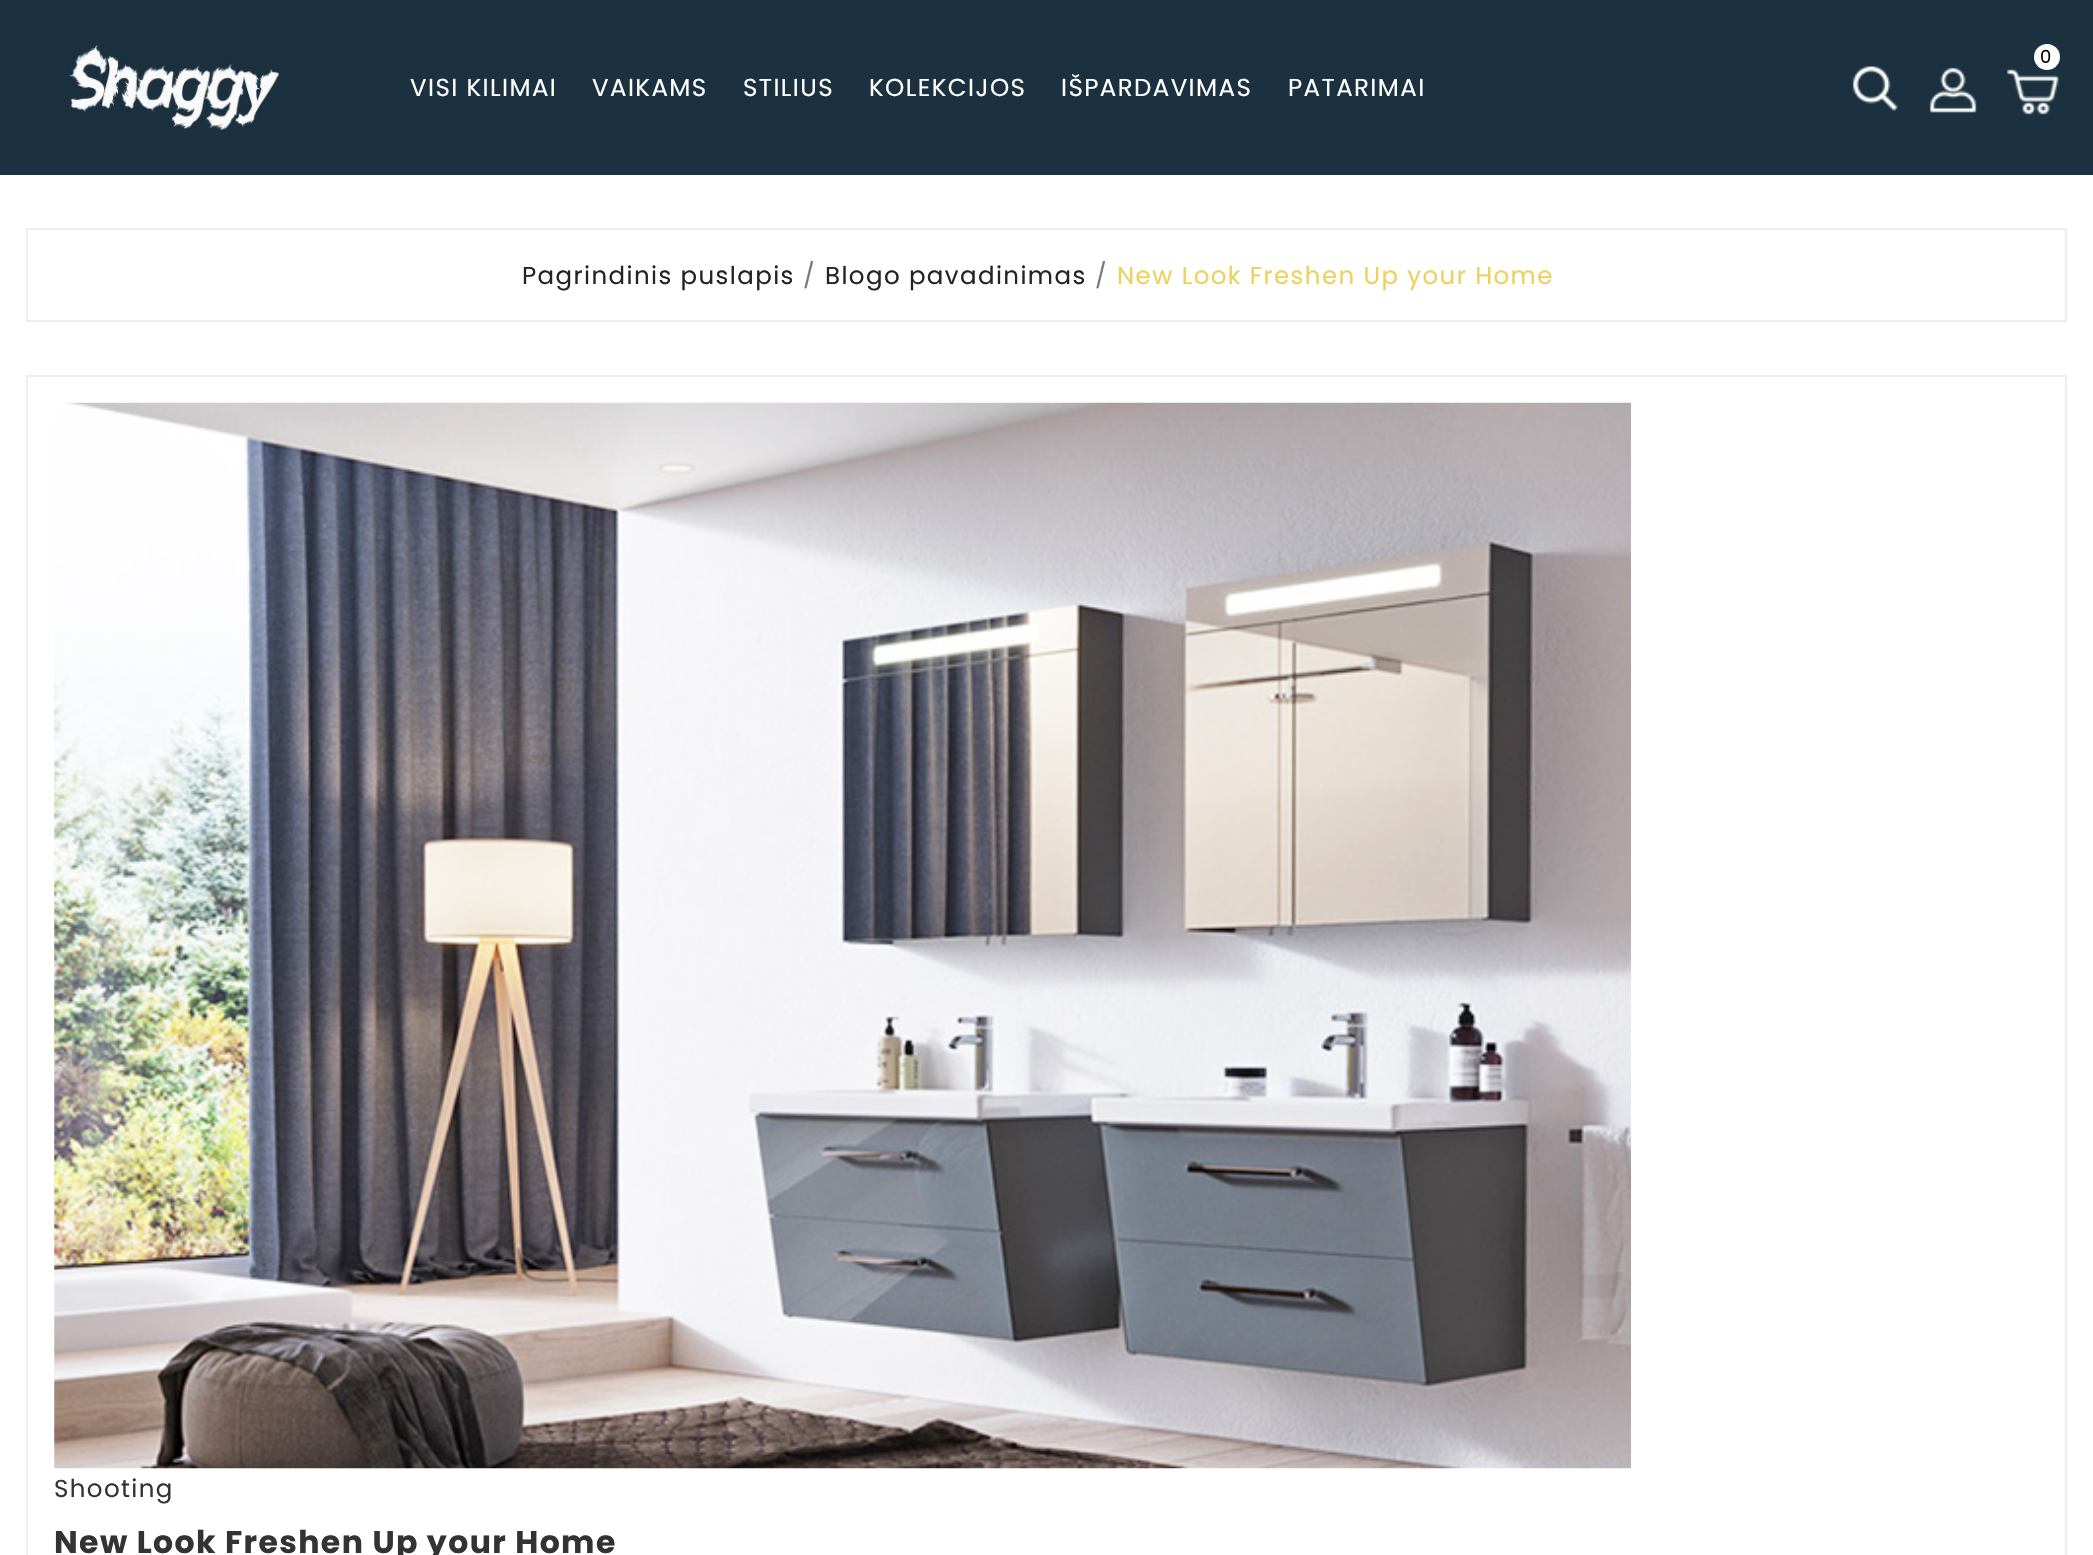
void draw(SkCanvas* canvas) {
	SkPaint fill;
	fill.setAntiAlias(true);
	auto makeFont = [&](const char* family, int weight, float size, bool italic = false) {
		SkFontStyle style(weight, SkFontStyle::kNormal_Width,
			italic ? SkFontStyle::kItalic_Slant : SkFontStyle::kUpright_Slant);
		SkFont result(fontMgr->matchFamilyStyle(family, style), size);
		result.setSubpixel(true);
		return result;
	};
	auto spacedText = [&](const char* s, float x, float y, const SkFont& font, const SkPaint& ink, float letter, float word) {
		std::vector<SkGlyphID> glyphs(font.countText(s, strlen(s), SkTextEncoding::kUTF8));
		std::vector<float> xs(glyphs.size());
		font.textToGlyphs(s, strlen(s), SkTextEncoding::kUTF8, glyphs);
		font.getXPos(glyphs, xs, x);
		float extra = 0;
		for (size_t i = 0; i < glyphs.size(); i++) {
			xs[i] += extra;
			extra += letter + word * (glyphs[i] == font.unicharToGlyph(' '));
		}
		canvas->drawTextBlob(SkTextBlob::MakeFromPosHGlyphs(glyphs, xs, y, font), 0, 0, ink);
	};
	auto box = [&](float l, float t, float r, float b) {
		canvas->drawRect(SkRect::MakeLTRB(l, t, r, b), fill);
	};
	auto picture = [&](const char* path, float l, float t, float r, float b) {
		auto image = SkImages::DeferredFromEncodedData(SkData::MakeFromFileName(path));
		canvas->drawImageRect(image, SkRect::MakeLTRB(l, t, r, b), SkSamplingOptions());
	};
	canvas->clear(0xFFFFFFFF);
	fill.setColor(0xFF1B313F);
	box(0, 0, 2093, 175);
	picture("image0.png", 67, 42, 279, 134);
	picture("image1.png", 2006, 69, 2059, 115);
	fill.setColor(0xFFFFFFFF);
	canvas->drawCircle(2047, 57, 13, fill);
	picture("image2.png", 1852, 66, 1898, 111);
	picture("image3.png", 1929, 67, 1977, 113);
	fill.setStyle(SkPaint::kStroke_Style);
	fill.setStrokeWidth(2);
	fill.setColor(0xFFEEEEEE);
	canvas->drawRect(SkRect::MakeLTRB(27, 229, 2066, 321), fill);
	canvas->drawRect(SkRect::MakeLTRB(27, 376, 2066, 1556), fill);
	picture("image4.png", 54, 402, 1631, 1469);
	auto font1 = makeFont("Poppins", 400, 18);
	fill.setStyle(SkPaint::kFill_Style);
	fill.setColor(0xFF000000);
	spacedText("0", 2040, 63, font1, fill, 1.4f, 0);
	auto font2 = makeFont("Poppins", 400, 24.5f);
	fill.setColor(0xFFFFFFFF);
	spacedText("VISI KILIMAI", 410, 96, font2, fill, 1.4f, 0);
	spacedText("VAIKAMS", 592, 96, font2, fill, 1.4f, 0);
	spacedText("STILIUS", 743, 96, font2, fill, 1.4f, 0);
	spacedText("KOLEKCIJOS", 869, 96, font2, fill, 1.4f, 0);
	spacedText("IŠPARDAVIMAS", 1061, 96, font2, fill, 1.4f, 0);
	spacedText("PATARIMAI", 1288, 96, font2, fill, 1.4f, 0);
	fill.setColor(0xFF232323);
	spacedText("Pagrindinis puslapis", 522, 284, font2, fill, 1.4f, 0);
	fill.setColor(0xFF7A7A7A);
	spacedText("/", 803, 284, font2, fill, 1.4f, 0);
	fill.setColor(0xFF232323);
	spacedText("Blogo pavadinimas", 825, 284, font2, fill, 1.4f, 0);
	fill.setColor(0xFF7A7A7A);
	spacedText("/", 1095, 284, font2, fill, 1.4f, 0);
	fill.setColor(0xFFEED15D);
	spacedText("New Look Freshen Up your Home", 1117, 284, font2, fill, 1.4f, 0);
	fill.setColor(0xFF333333);
	spacedText("Shooting", 54, 1497, font2, fill, 1.4f, 0);
	auto font3 = makeFont("Poppins", 700, 31.5f);
	spacedText("New Look Freshen Up your Home", 54, 1553, font3, fill, 1.4f, 0);
}
